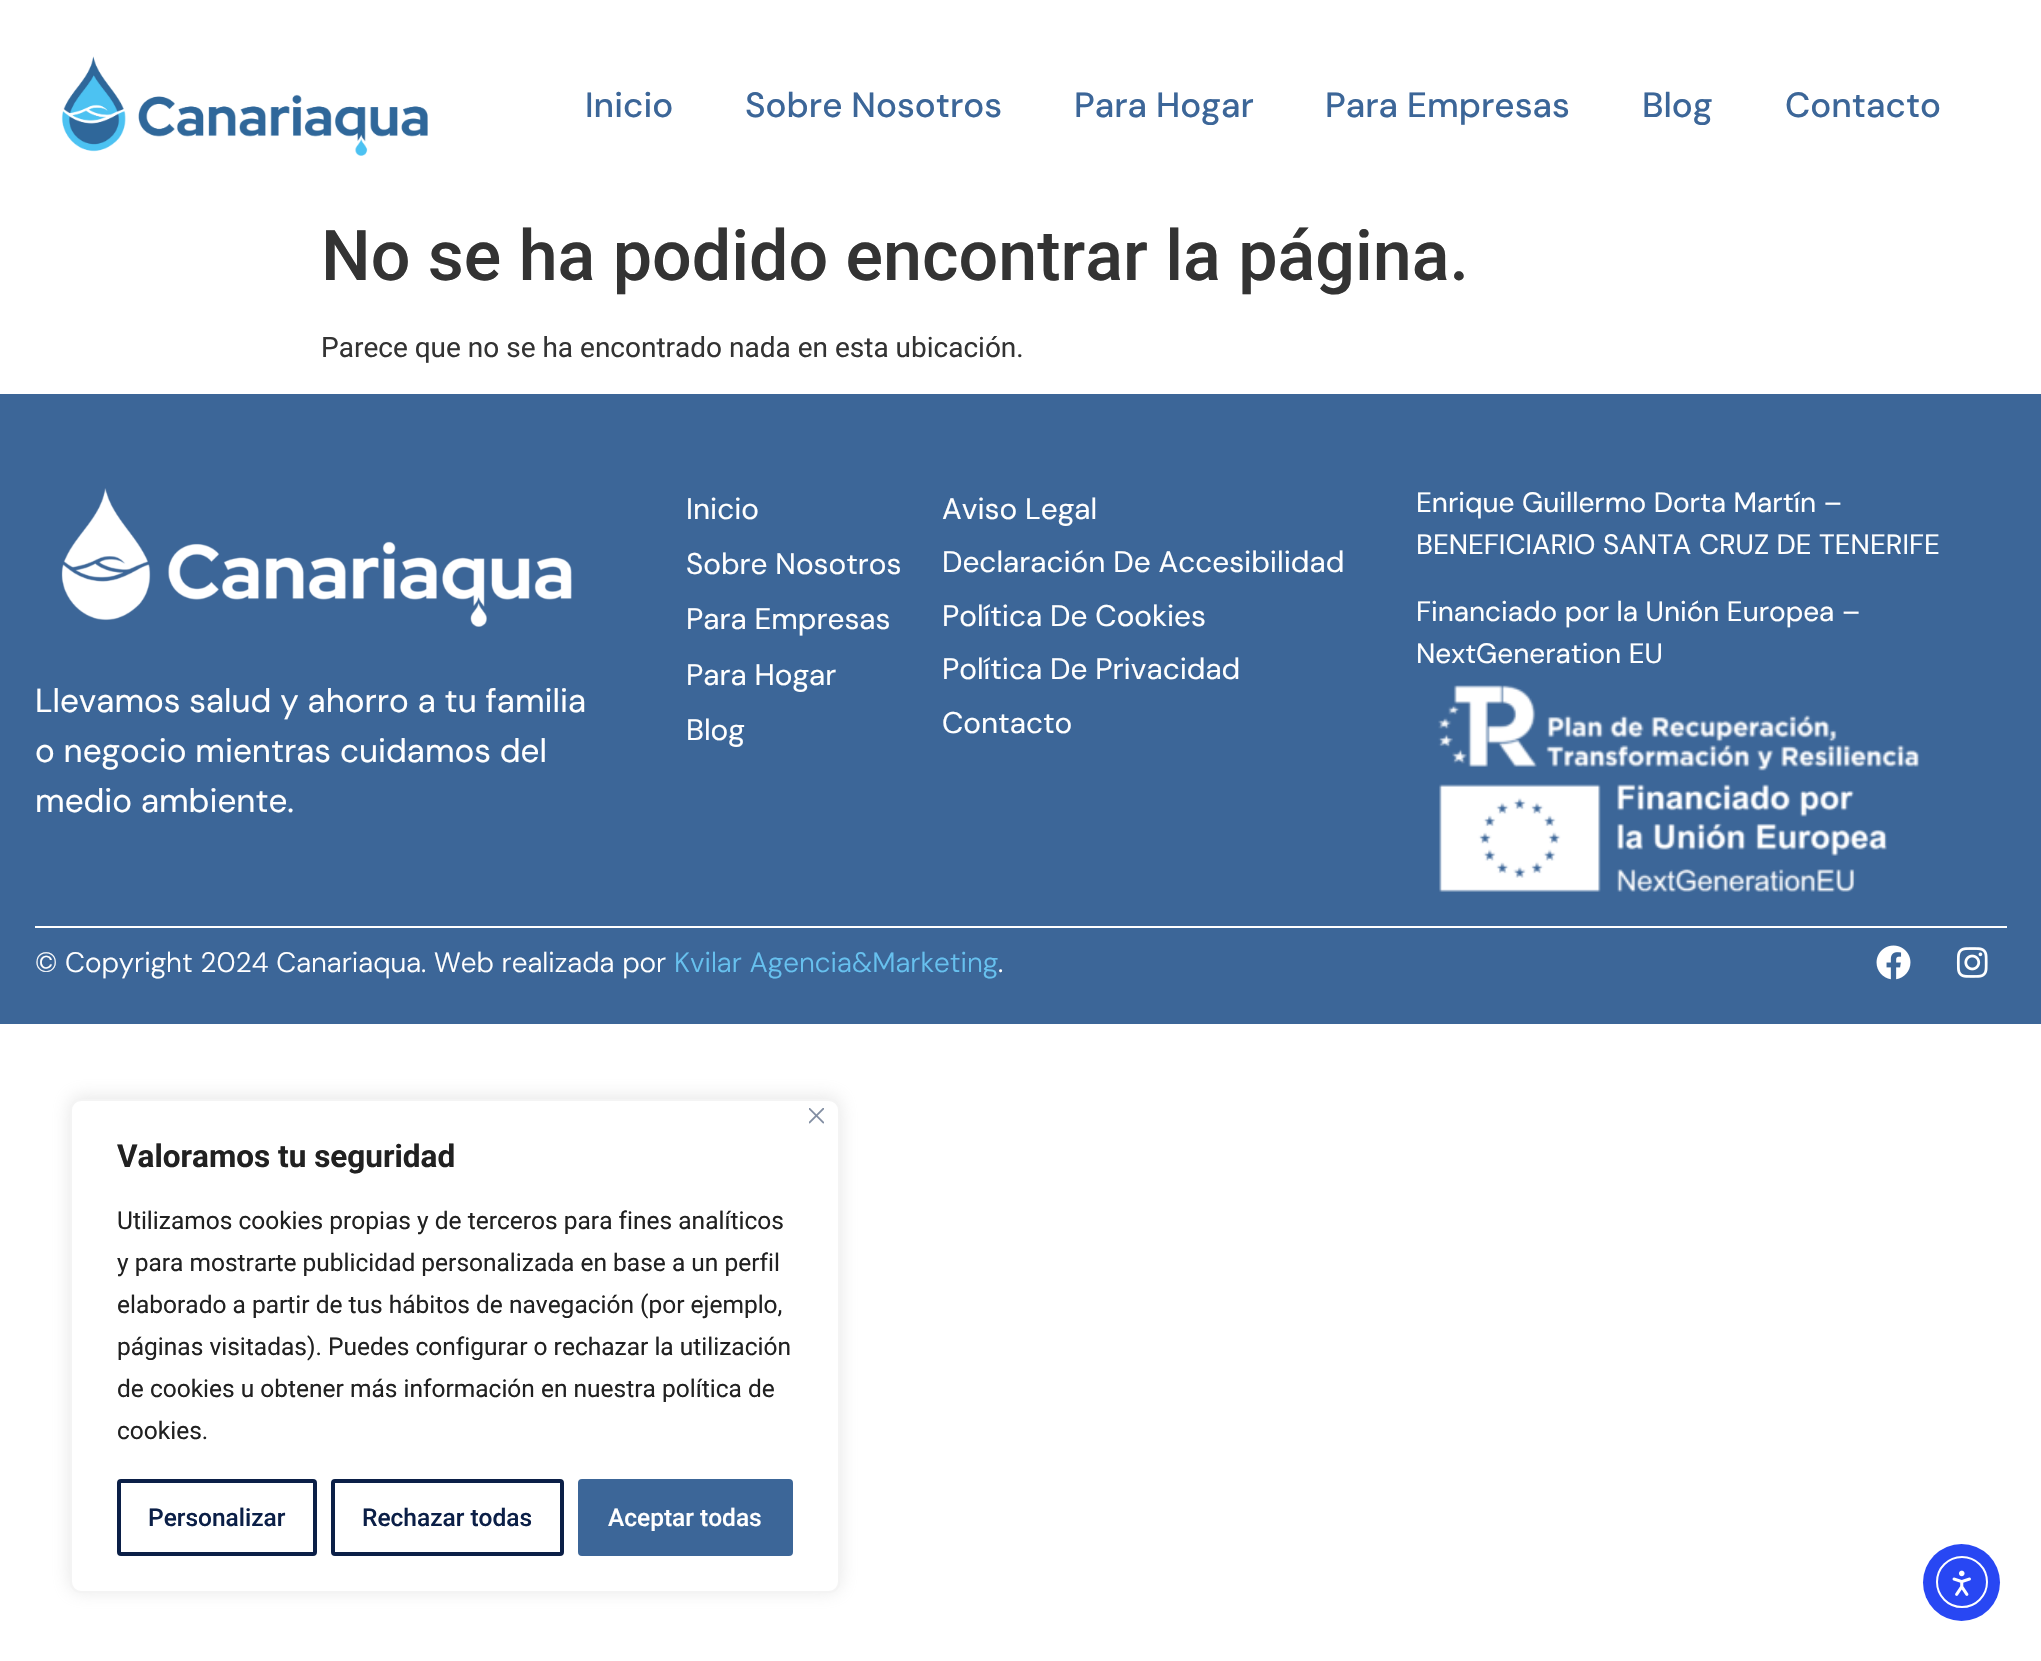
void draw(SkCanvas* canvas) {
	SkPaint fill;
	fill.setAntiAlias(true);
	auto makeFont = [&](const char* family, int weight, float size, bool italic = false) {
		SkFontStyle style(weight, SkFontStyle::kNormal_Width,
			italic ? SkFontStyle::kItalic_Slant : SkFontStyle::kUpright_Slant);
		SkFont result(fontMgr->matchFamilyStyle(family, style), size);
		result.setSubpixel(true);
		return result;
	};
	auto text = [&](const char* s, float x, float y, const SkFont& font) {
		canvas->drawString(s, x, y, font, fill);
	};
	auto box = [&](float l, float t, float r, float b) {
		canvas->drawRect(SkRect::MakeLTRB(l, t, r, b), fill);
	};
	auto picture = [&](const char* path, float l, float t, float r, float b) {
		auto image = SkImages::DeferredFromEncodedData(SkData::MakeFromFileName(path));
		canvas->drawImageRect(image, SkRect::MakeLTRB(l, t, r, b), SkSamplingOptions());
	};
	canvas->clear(0xFFFFFFFF);
	picture("image0.png", 61, 56, 428, 156);
	fill.setColor(0xFF3C6698);
	box(0, 394, 2041, 1024);
	picture("image1.png", 1438, 685, 1920, 771);
	picture("image2.png", 1439, 784, 1887, 892);
	picture("image3.png", 61, 488, 572, 627);
	fill.setColor(0xFFFFFFFF);
	box(35, 926, 2007, 928);
	picture("image4.png", 1876, 945, 1911, 980);
	picture("image5.png", 1956, 947, 1988, 978);
	fill.setColor(0x4DACABAB);
	fill.setMaskFilter(SkMaskFilter::MakeBlur(kNormal_SkBlurStyle, 9));
	canvas->drawRoundRect(SkRect::MakeLTRB(70, 1097, 840, 1591), 11, 11, fill);
	fill.setMaskFilter(nullptr);
	fill.setColor(0xFFFFFFFF);
	canvas->drawRoundRect(SkRect::MakeLTRB(71, 1100, 839, 1592), 10, 10, fill);
	fill.setStyle(SkPaint::kStroke_Style);
	fill.setStrokeWidth(2);
	fill.setColor(0xFFF4F4F4);
	canvas->drawRoundRect(SkRect::MakeLTRB(71, 1100, 839, 1592), 10, 10, fill);
	picture("image6.png", 809, 1108, 824, 1124);
	fill.setStrokeWidth(4);
	fill.setColor(0xFF0B1F47);
	canvas->drawRoundRect(SkRect::MakeLTRB(119, 1481, 315, 1554), 2, 2, fill);
	canvas->drawRoundRect(SkRect::MakeLTRB(333, 1481, 562, 1554), 2, 2, fill);
	fill.setStyle(SkPaint::kFill_Style);
	fill.setColor(0xFF3C6698);
	canvas->drawRoundRect(SkRect::MakeLTRB(580, 1481, 791, 1554), 2, 2, fill);
	fill.setStyle(SkPaint::kStroke_Style);
	canvas->drawRoundRect(SkRect::MakeLTRB(580, 1481, 791, 1554), 2, 2, fill);
	fill.setStyle(SkPaint::kFill_Style);
	fill.setColor(0xFF2847F3);
	canvas->drawCircle(1961.5f, 1582.5f, 38.5f, fill);
	fill.setStyle(SkPaint::kStroke_Style);
	fill.setStrokeWidth(2);
	fill.setColor(0xFFFFFFFF);
	canvas->drawCircle(1962, 1582, 25, fill);
	picture("image7.png", 1952, 1570, 1971, 1596);
	auto font1 = makeFont("DM Sans", 500, 35);
	fill.setStyle(SkPaint::kFill_Style);
	fill.setColor(0xFF3C6698);
	text("Inicio", 585, 117, font1);
	text("Sobre Nosotros", 745, 117, font1);
	text("Para Hogar", 1074, 117, font1);
	text("Para Empresas", 1325, 117, font1);
	text("Blog", 1642, 117, font1);
	text("Contacto", 1785, 117, font1);
	auto font2 = makeFont("Roboto", 500, 70);
	fill.setColor(0xFF333333);
	text("No se ha podido encontrar la página.", 321, 280, font2);
	auto font3 = makeFont("Roboto", 400, 28);
	text("Parece que no se ha encontrado nada en esta ubicación.", 321, 357, font3);
	auto font4 = makeFont("DM Sans", 400, 29.75f);
	fill.setColor(0xFFFFFFFF);
	text("Inicio", 686, 519, font4);
	text("Sobre Nosotros", 686, 574, font4);
	text("Para Empresas", 686, 629, font4);
	text("Para Hogar", 686, 685, font4);
	text("Blog", 686, 740, font4);
	text("Aviso Legal", 942, 519, font4);
	text("Declaración De Accesibilidad", 942, 572, font4);
	text("Política De Cookies", 942, 626, font4);
	text("Política De Privacidad", 942, 679, font4);
	text("Contacto", 942, 733, font4);
	auto font5 = makeFont("DM Sans", 400, 28);
	text("Enrique Guillermo Dorta Martín –", 1416, 512, font5);
	text("BENEFICIARIO SANTA CRUZ DE TENERIFE", 1416, 554, font5);
	text("Financiado por la Unión Europea –", 1416, 621, font5);
	text("NextGeneration EU", 1416, 663, font5);
	auto font6 = makeFont("DM Sans", 400, 33.25f);
	text("Llevamos salud y ahorro a tu familia", 35, 712, font6);
	text("o negocio mientras cuidamos del", 35, 762, font6);
	text("medio ambiente.", 35, 812, font6);
	auto font7 = makeFont("DM Sans", 300, 28);
	text("© Copyright 2024 Canariaqua. Web realizada por", 35, 972, font7);
	fill.setColor(0xFF67C1EF);
	text("Kvilar Agencia&Marketing", 674, 972, font7);
	fill.setColor(0xFFFFFFFF);
	text(".", 998, 972, font7);
	auto font8 = makeFont("Roboto", 700, 31.5f);
	fill.setColor(0xFF212121);
	text("Valoramos tu seguridad", 117, 1167, font8);
	auto font9 = makeFont("Roboto", 400, 24.5f);
	text("Utilizamos cookies propias y de terceros para fines analíticos", 117, 1229, font9);
	text("y para mostrarte publicidad personalizada en base a un perfil", 117, 1271, font9);
	text("elaborado a partir de tus hábitos de navegación (por ejemplo,", 117, 1313, font9);
	text("páginas visitadas). Puedes configurar o rechazar la utilización", 117, 1355, font9);
	text("de cookies u obtener más información en nuestra política de", 117, 1397, font9);
	text("cookies.", 117, 1439, font9);
	auto font10 = makeFont("Roboto", 500, 24.5f);
	fill.setColor(0xFF0B1F47);
	text("Personalizar", 148, 1526, font10);
	text("Rechazar todas", 362, 1526, font10);
	fill.setColor(0xFFFFFFFF);
	text("Aceptar todas", 608, 1526, font10);
}
